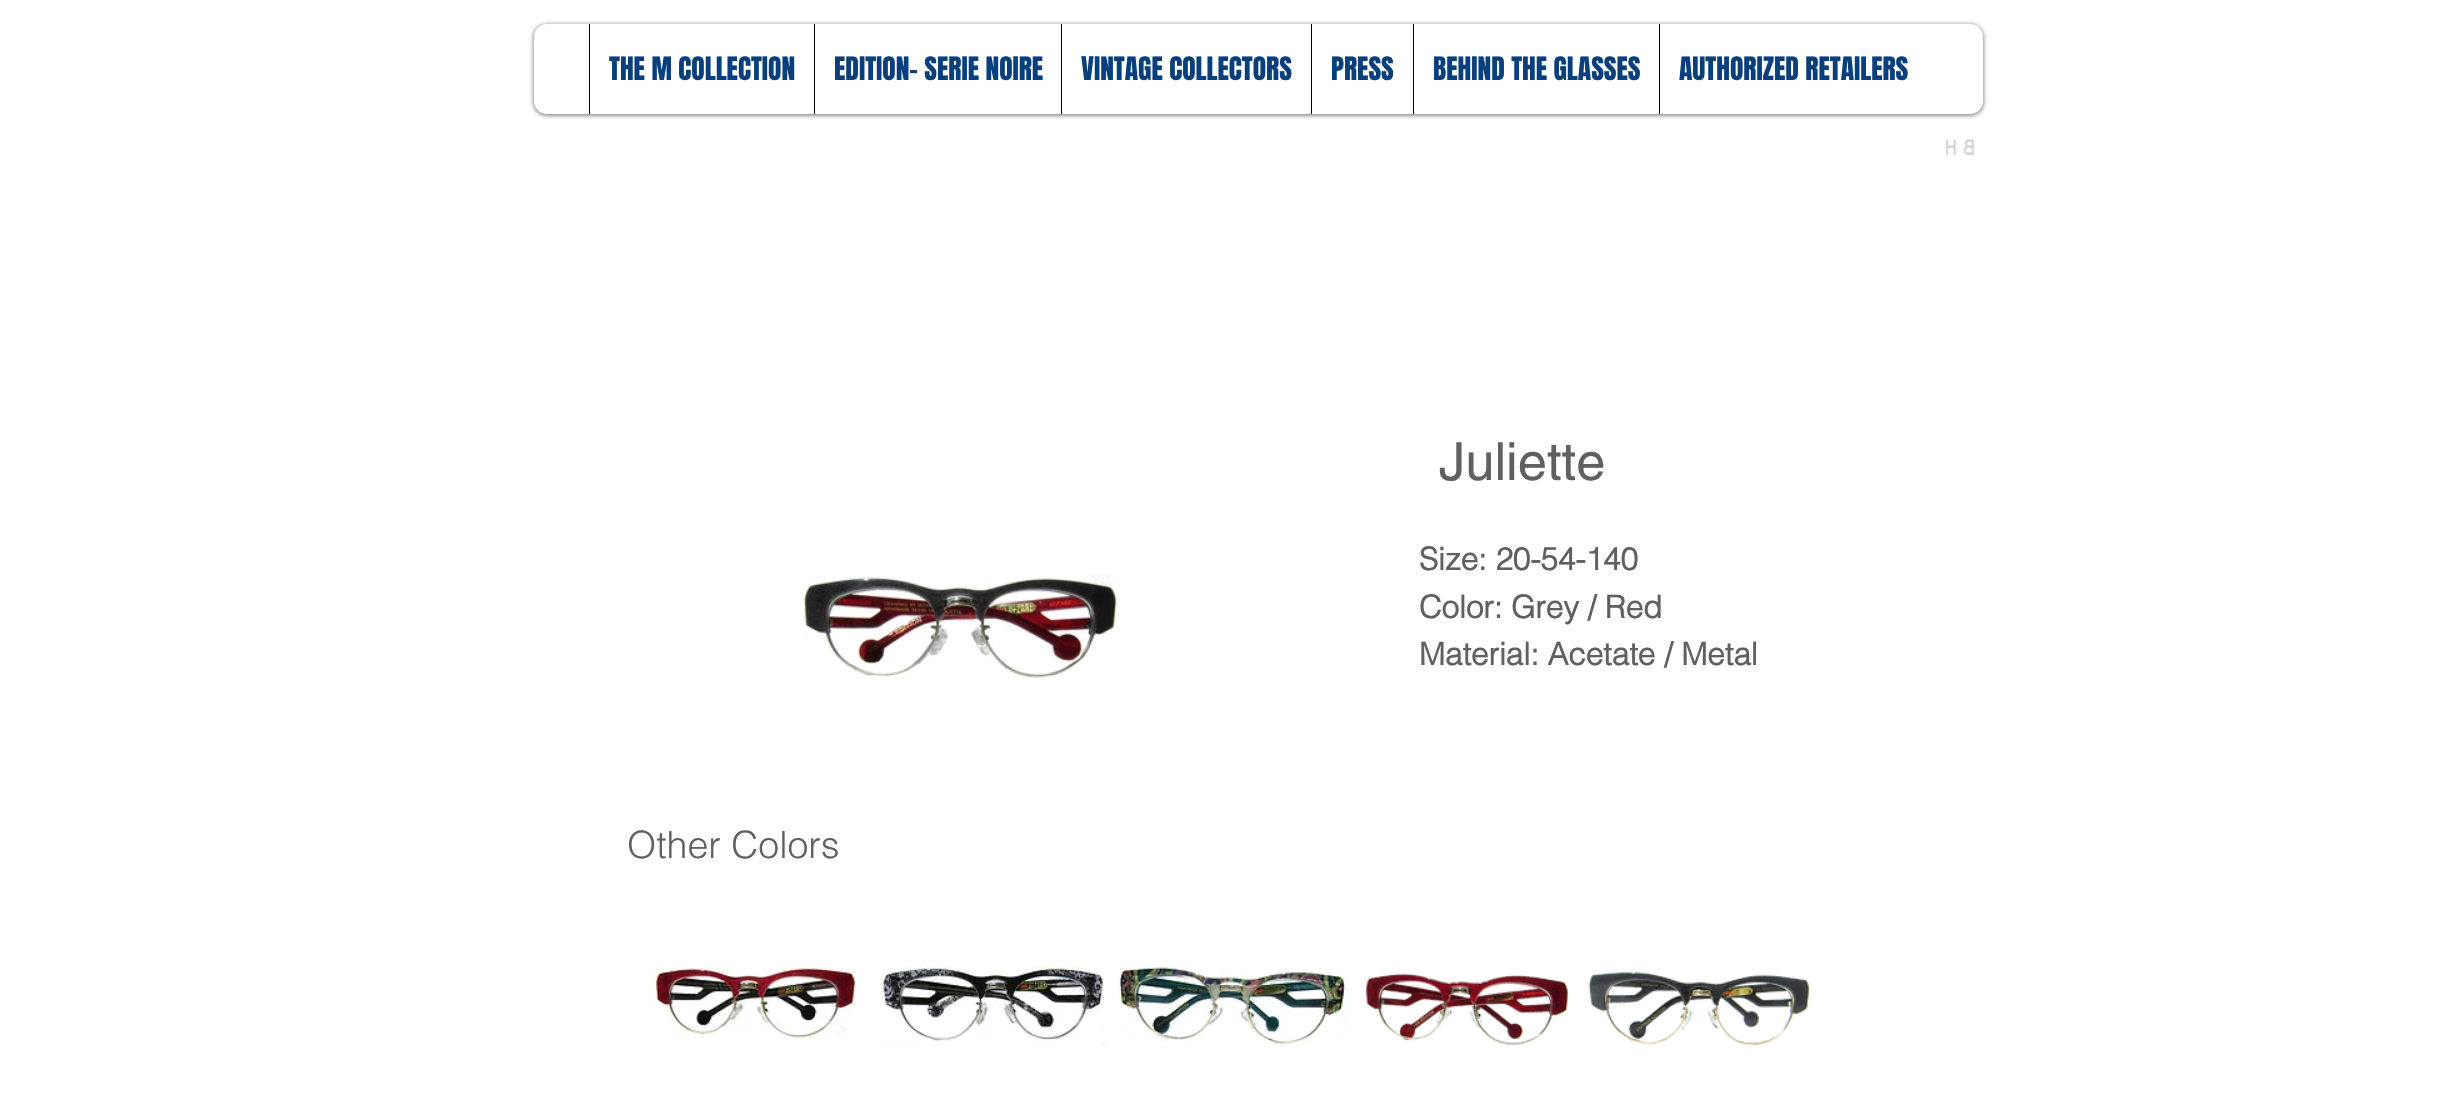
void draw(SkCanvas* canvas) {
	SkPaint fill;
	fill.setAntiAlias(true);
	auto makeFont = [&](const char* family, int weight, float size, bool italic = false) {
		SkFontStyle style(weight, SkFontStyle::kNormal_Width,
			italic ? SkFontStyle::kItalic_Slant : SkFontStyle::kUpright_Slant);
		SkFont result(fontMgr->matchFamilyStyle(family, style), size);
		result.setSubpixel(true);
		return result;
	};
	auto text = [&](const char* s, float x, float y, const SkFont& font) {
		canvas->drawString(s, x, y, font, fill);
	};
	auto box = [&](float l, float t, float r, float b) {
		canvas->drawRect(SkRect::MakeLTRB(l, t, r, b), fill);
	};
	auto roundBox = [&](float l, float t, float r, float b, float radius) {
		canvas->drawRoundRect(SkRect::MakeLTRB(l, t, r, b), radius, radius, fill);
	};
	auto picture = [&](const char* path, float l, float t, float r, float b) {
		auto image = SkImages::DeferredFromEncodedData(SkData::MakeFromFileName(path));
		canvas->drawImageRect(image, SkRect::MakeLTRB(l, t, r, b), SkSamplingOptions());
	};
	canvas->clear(0xFFFFFFFF);
	fill.setColor(0x99000000);
	fill.setMaskFilter(SkMaskFilter::MakeBlur(kNormal_SkBlurStyle, 2.5f));
	canvas->drawRoundRect(SkRect::MakeLTRB(534, 25, 1983, 115), 13, 13, fill);
	fill.setMaskFilter(nullptr);
	fill.setColor(0xFFFFFFFF);
	roundBox(534, 24, 1983, 114, 13);
	fill.setColor(0xFF000000);
	box(589, 24, 590, 114);
	box(814, 24, 815, 114);
	box(1061, 24, 1062, 114);
	box(1311, 24, 1312, 114);
	box(1413, 24, 1414, 114);
	box(1659, 24, 1660, 114);
	picture("image0.png", 1945, 138, 1974, 156);
	picture("image1.png", 803, 574, 1117, 680);
	picture("image2.png", 650, 967, 860, 1038);
	picture("image3.png", 882, 966, 1105, 1046);
	picture("image4.png", 1118, 966, 1349, 1046);
	picture("image5.png", 1334, 973, 1570, 1046);
	picture("image6.png", 1588, 971, 1811, 1046);
	auto font1 = makeFont("Anton", 400, 27.5f);
	fill.setColor(0xFF093F7C);
	text("THE M COLLECTION", 609, 80, font1);
	text("EDITION- SERIE NOIRE", 834, 80, font1);
	text("VINTAGE COLLECTORS", 1081, 80, font1);
	text("PRESS", 1331, 80, font1);
	text("BEHIND THE GLASSES", 1433, 80, font1);
	text("AUTHORIZED RETAILERS", 1679, 80, font1);
	auto font2 = makeFont("helvetica", 400, 52.5f);
	fill.setColor(0xFF606060);
	text("Juliette", 1439, 480, font2);
	auto font3 = makeFont("helvetica", 700, 31.25f);
	text("Size: 20-54-140", 1419, 570, font3);
	text("Color: Grey / Red", 1419, 618, font3);
	text("Material: Acetate / Metal", 1419, 665, font3);
	auto font4 = makeFont("helvetica", 300, 37.5f);
	text("Other Colors", 627, 858, font4);
}
